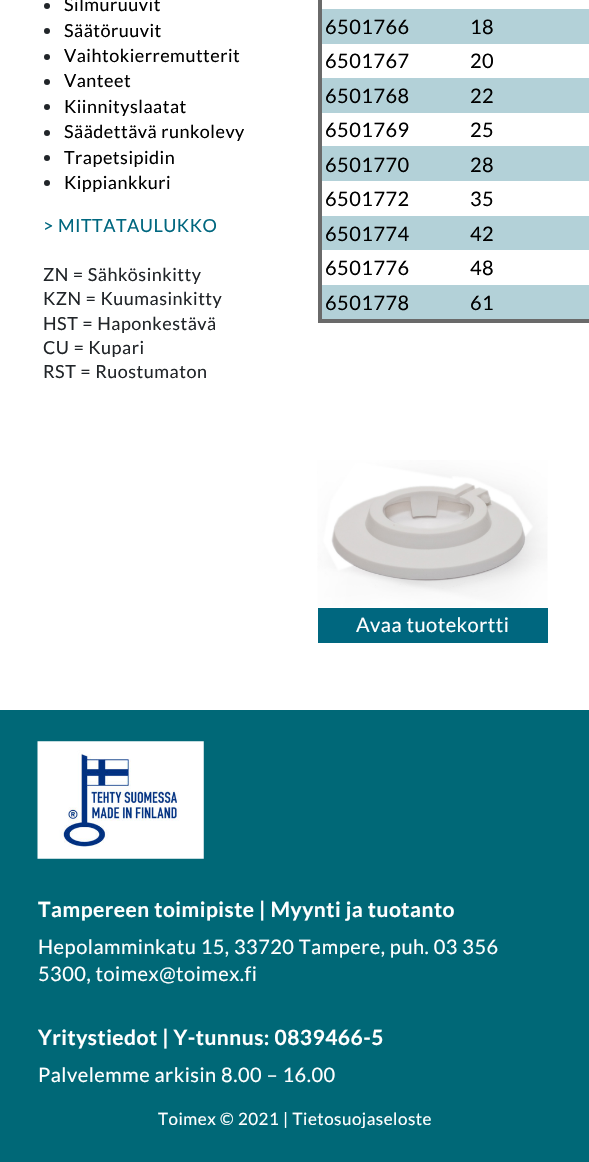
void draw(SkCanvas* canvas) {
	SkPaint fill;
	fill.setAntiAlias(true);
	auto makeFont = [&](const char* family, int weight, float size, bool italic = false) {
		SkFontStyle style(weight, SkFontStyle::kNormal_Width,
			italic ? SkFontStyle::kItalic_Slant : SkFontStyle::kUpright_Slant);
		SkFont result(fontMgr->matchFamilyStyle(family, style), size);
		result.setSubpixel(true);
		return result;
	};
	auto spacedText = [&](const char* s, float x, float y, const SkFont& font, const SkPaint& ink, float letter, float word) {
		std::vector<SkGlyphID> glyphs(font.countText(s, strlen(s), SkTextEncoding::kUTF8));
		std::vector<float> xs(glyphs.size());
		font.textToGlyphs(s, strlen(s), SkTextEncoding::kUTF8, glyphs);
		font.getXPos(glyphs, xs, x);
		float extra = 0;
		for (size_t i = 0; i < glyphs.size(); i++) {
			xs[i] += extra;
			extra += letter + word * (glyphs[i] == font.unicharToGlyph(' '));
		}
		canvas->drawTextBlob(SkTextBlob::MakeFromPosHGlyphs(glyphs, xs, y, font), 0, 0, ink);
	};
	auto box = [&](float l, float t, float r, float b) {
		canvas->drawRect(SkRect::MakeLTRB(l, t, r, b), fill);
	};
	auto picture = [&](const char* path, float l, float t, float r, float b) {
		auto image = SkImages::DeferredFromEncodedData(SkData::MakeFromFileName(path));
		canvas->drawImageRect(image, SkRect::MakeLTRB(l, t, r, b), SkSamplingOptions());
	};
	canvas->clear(0xFFFFFFFF);
	fill.setColor(0xFF212529);
	canvas->drawCircle(47, 6, 3, fill);
	canvas->drawCircle(47, 31, 3, fill);
	canvas->drawCircle(47, 57, 3, fill);
	canvas->drawCircle(47, 82, 3, fill);
	canvas->drawCircle(47, 107, 3, fill);
	canvas->drawCircle(47, 133, 3, fill);
	canvas->drawCircle(47, 158, 3, fill);
	canvas->drawCircle(47, 183, 3, fill);
	fill.setColor(0xFF6A6A6A);
	box(318, 319, 589, 323);
	box(318, 0, 322, 323);
	fill.setColor(0xFFB3D1D8);
	box(322, 9, 589, 44);
	box(322, 78, 589, 113);
	box(322, 146, 589, 181);
	box(322, 216, 589, 250);
	box(322, 285, 589, 319);
	picture("image0.png", 317, 460, 548, 607);
	fill.setColor(0xFF00677F);
	box(318, 608, 548, 643);
	fill.setColor(0xFF006877);
	box(0, 710, 589, 1162);
	picture("image1.png", 37, 741, 204, 859);
	auto font1 = makeFont("Lato", 400, 18);
	fill.setColor(0xFF000000);
	spacedText("Silmuruuvit", 64, 11, font1, fill, 0.5f, 0);
	spacedText("Säätöruuvit", 64, 37, font1, fill, 0.5f, 0);
	spacedText("Vaihtokierremutterit", 64, 62, font1, fill, 0.5f, 0);
	spacedText("Vanteet", 64, 87, font1, fill, 0.5f, 0);
	spacedText("Kiinnityslaatat", 64, 113, font1, fill, 0.5f, 0);
	spacedText("Säädettävä runkolevy", 64, 138, font1, fill, 0.5f, 0);
	spacedText("Trapetsipidin", 64, 164, font1, fill, 0.5f, 0);
	spacedText("Kippiankkuri", 64, 189, font1, fill, 0.5f, 0);
	fill.setColor(0xFF00677F);
	spacedText("> MITTATAULUKKO", 43, 232, font1, fill, 0.5f, 0);
	fill.setColor(0xFF212529);
	spacedText("ZN = Sähkösinkitty", 43, 281, font1, fill, 0.5f, 0);
	spacedText("KZN = Kuumasinkitty", 43, 305, font1, fill, 0.5f, 0);
	spacedText("HST = Haponkestävä", 43, 330, font1, fill, 0.5f, 0);
	spacedText("CU = Kupari", 43, 354, font1, fill, 0.5f, 0);
	spacedText("RST = Ruostumaton", 43, 378, font1, fill, 0.5f, 0);
	auto font2 = makeFont("Lato", 400, 20);
	fill.setColor(0xFF000000);
	spacedText("6501766", 325, 34, font2, fill, 0.5f, 0);
	spacedText("18", 470, 34, font2, fill, 0.5f, 0);
	spacedText("6501767", 325, 68, font2, fill, 0.5f, 0);
	spacedText("20", 470, 68, font2, fill, 0.5f, 0);
	spacedText("6501768", 325, 103, font2, fill, 0.5f, 0);
	spacedText("22", 470, 103, font2, fill, 0.5f, 0);
	spacedText("6501769", 325, 137, font2, fill, 0.5f, 0);
	spacedText("25", 470, 137, font2, fill, 0.5f, 0);
	spacedText("6501770", 325, 172, font2, fill, 0.5f, 0);
	spacedText("28", 470, 172, font2, fill, 0.5f, 0);
	spacedText("6501772", 325, 206, font2, fill, 0.5f, 0);
	spacedText("35", 470, 206, font2, fill, 0.5f, 0);
	spacedText("6501774", 325, 241, font2, fill, 0.5f, 0);
	spacedText("42", 470, 241, font2, fill, 0.5f, 0);
	spacedText("6501776", 325, 275, font2, fill, 0.5f, 0);
	spacedText("48", 470, 275, font2, fill, 0.5f, 0);
	spacedText("6501778", 325, 310, font2, fill, 0.5f, 0);
	spacedText("61", 470, 310, font2, fill, 0.5f, 0);
	fill.setColor(0xFFFFFFFF);
	spacedText("Avaa tuotekortti", 356, 632, font2, fill, 0.5f, 0);
	auto font3 = makeFont("Lato", 700, 21);
	spacedText("Tampereen toimipiste | Myynti ja tuotanto", 38, 917, font3, fill, 0.5f, 0);
	spacedText("Hepolamminkatu 15, 33720 Tampere, puh. 03 356", 38, 954, font2, fill, 0.5f, 0);
	spacedText("5300, toimex@toimex.fi", 38, 981, font2, fill, 0.5f, 0);
	spacedText("Yritystiedot | Y-tunnus: 0839466-5", 38, 1045, font3, fill, 0.5f, 0);
	spacedText("Palvelemme arkisin 8.00 – 16.00", 38, 1082, font2, fill, 0.5f, 0);
	auto font4 = makeFont("Lato", 400, 17);
	spacedText("Toimex © 2021 | Tietosuojaseloste", 158, 1125, font4, fill, 0.5f, 0);
}
